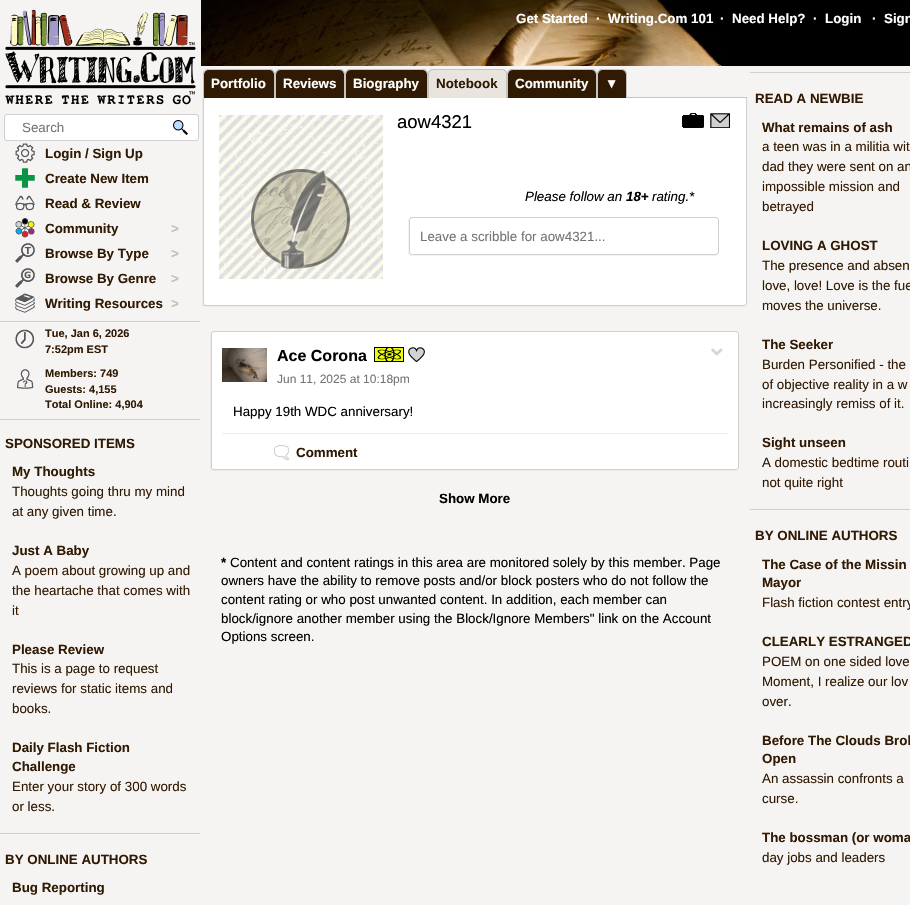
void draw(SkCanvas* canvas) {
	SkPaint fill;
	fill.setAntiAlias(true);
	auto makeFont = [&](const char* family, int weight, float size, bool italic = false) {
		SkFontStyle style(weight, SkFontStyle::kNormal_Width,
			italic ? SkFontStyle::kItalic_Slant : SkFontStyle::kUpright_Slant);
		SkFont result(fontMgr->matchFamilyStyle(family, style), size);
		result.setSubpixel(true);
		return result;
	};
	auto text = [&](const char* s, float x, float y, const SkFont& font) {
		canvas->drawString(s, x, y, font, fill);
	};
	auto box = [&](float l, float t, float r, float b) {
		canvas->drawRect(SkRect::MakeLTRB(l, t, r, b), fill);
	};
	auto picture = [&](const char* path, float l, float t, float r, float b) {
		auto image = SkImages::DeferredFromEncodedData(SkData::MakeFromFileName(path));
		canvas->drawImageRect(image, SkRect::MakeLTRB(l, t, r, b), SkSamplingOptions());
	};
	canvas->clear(0xFFF5F4F2);
	fill.setColor(0xFF000000);
	box(728, 0, 910, 66);
	picture("image0.png", 201, 0, 728, 66);
	picture("image1.png", 5, 9, 196, 105);
	fill.setColor(0xFFFFFFFF);
	canvas->drawRoundRect(SkRect::MakeLTRB(4.5f, 114.5f, 198.5f, 140.5f), 2.5f, 2.5f, fill);
	fill.setStyle(SkPaint::kStroke_Style);
	fill.setStrokeWidth(1);
	fill.setColor(0xFFD0CFCE);
	canvas->drawRoundRect(SkRect::MakeLTRB(4.5f, 114.5f, 198.5f, 140.5f), 2.5f, 2.5f, fill);
	picture("image2.png", 173, 120, 188, 135);
	picture("image3.png", 15, 143, 35, 163);
	picture("image4.png", 15, 168, 35, 188);
	picture("image5.png", 15, 195, 35, 211);
	picture("image6.png", 15, 218, 35, 238);
	picture("image7.png", 15, 243, 35, 263);
	picture("image8.png", 15, 268, 35, 288);
	picture("image9.png", 15, 293, 35, 313);
	fill.setStyle(SkPaint::kFill_Style);
	box(0, 321, 200, 322);
	picture("image10.png", 15, 329, 35, 349);
	picture("image11.png", 17, 369, 34, 389);
	box(0, 419, 200, 420);
	box(0, 833, 200, 834);
	fill.setColor(0xFF311A03);
	canvas->drawPath(SkPathBuilder().moveTo(208, 70).lineTo(270, 70).cubicTo(272, 70, 274, 72, 274, 74).lineTo(274, 98).lineTo(204, 98).lineTo(204, 74).cubicTo(204, 72, 206, 70, 208, 70).close().detach(), fill);
	fill.setColor(0xFFC4C3C2);
	canvas->drawPath(SkPathBuilder(SkPathFillType::kEvenOdd).moveTo(208, 69).lineTo(270, 69).cubicTo(273, 69, 275, 71, 275, 74).lineTo(275, 98).lineTo(203, 98).lineTo(203, 74).cubicTo(203, 71, 205, 69, 208, 69).close().moveTo(208, 70).lineTo(270, 70).cubicTo(272, 70, 274, 72, 274, 74).lineTo(274, 98).lineTo(204, 98).lineTo(204, 74).cubicTo(204, 72, 206, 70, 208, 70).close().detach(), fill);
	fill.setColor(0xFF311A03);
	canvas->drawPath(SkPathBuilder().moveTo(280, 70).lineTo(340, 70).cubicTo(342, 70, 344, 72, 344, 74).lineTo(344, 98).lineTo(276, 98).lineTo(276, 74).cubicTo(276, 72, 278, 70, 280, 70).close().detach(), fill);
	fill.setColor(0xFFC4C3C2);
	canvas->drawPath(SkPathBuilder(SkPathFillType::kEvenOdd).moveTo(280, 69).lineTo(340, 69).cubicTo(343, 69, 345, 71, 345, 74).lineTo(345, 98).lineTo(275, 98).lineTo(275, 74).cubicTo(275, 71, 277, 69, 280, 69).close().moveTo(280, 70).lineTo(340, 70).cubicTo(342, 70, 344, 72, 344, 74).lineTo(344, 98).lineTo(276, 98).lineTo(276, 74).cubicTo(276, 72, 278, 70, 280, 70).close().detach(), fill);
	fill.setColor(0xFF311A03);
	canvas->drawPath(SkPathBuilder().moveTo(350, 70).lineTo(423, 70).cubicTo(425, 70, 427, 72, 427, 74).lineTo(427, 98).lineTo(346, 98).lineTo(346, 74).cubicTo(346, 72, 348, 70, 350, 70).close().detach(), fill);
	fill.setColor(0xFFC4C3C2);
	canvas->drawPath(SkPathBuilder(SkPathFillType::kEvenOdd).moveTo(350, 69).lineTo(423, 69).cubicTo(426, 69, 428, 71, 428, 74).lineTo(428, 98).lineTo(345, 98).lineTo(345, 74).cubicTo(345, 71, 347, 69, 350, 69).close().moveTo(350, 70).lineTo(423, 70).cubicTo(425, 70, 427, 72, 427, 74).lineTo(427, 98).lineTo(346, 98).lineTo(346, 74).cubicTo(346, 72, 348, 70, 350, 70).close().detach(), fill);
	fill.setColor(0xFFE9E4DE);
	canvas->drawPath(SkPathBuilder().moveTo(433, 70).lineTo(502, 70).cubicTo(504, 70, 506, 72, 506, 74).lineTo(506, 98).lineTo(429, 98).lineTo(429, 74).cubicTo(429, 72, 431, 70, 433, 70).close().detach(), fill);
	fill.setColor(0xFFC4C3C2);
	canvas->drawPath(SkPathBuilder(SkPathFillType::kEvenOdd).moveTo(433, 69).lineTo(502, 69).cubicTo(505, 69, 507, 71, 507, 74).lineTo(507, 98).lineTo(428, 98).lineTo(428, 74).cubicTo(428, 71, 430, 69, 433, 69).close().moveTo(433, 70).lineTo(502, 70).cubicTo(504, 70, 506, 72, 506, 74).lineTo(506, 98).lineTo(429, 98).lineTo(429, 74).cubicTo(429, 72, 431, 70, 433, 70).close().detach(), fill);
	fill.setColor(0xFF311A03);
	canvas->drawPath(SkPathBuilder().moveTo(512, 70).lineTo(592, 70).cubicTo(594, 70, 596, 72, 596, 74).lineTo(596, 98).lineTo(508, 98).lineTo(508, 74).cubicTo(508, 72, 510, 70, 512, 70).close().detach(), fill);
	fill.setColor(0xFFC4C3C2);
	canvas->drawPath(SkPathBuilder(SkPathFillType::kEvenOdd).moveTo(512, 69).lineTo(592, 69).cubicTo(595, 69, 597, 71, 597, 74).lineTo(597, 98).lineTo(507, 98).lineTo(507, 74).cubicTo(507, 71, 509, 69, 512, 69).close().moveTo(512, 70).lineTo(592, 70).cubicTo(594, 70, 596, 72, 596, 74).lineTo(596, 98).lineTo(508, 98).lineTo(508, 74).cubicTo(508, 72, 510, 70, 512, 70).close().detach(), fill);
	fill.setColor(0xFF311A03);
	canvas->drawPath(SkPathBuilder().moveTo(602, 70).lineTo(622, 70).cubicTo(624, 70, 626, 72, 626, 74).lineTo(626, 98).lineTo(598, 98).lineTo(598, 74).cubicTo(598, 72, 600, 70, 602, 70).close().detach(), fill);
	fill.setColor(0xFFC4C3C2);
	canvas->drawPath(SkPathBuilder(SkPathFillType::kEvenOdd).moveTo(602, 69).lineTo(622, 69).cubicTo(625, 69, 627, 71, 627, 74).lineTo(627, 98).lineTo(597, 98).lineTo(597, 74).cubicTo(597, 71, 599, 69, 602, 69).close().moveTo(602, 70).lineTo(622, 70).cubicTo(624, 70, 626, 72, 626, 74).lineTo(626, 98).lineTo(598, 98).lineTo(598, 74).cubicTo(598, 72, 600, 70, 602, 70).close().detach(), fill);
	box(627, 97, 747, 98);
	fill.setColor(0xFFECEBE9);
	canvas->drawPath(SkPathBuilder().moveTo(202, 99).lineTo(202, 304).cubicTo(202, 306, 203, 307, 205, 307).lineTo(743, 307).cubicTo(744, 307, 745, 306, 746, 306).lineTo(744, 306).lineTo(206, 306).cubicTo(204, 306, 203, 305, 203, 303).lineTo(203, 99).close().detach(), fill);
	fill.setColor(0xFFFFFFFF);
	canvas->drawPath(SkPathBuilder().moveTo(203, 98).lineTo(747, 98).lineTo(747, 303).cubicTo(747, 304.5f, 745.5f, 306, 744, 306).lineTo(206, 306).cubicTo(204.5f, 306, 203, 304.5f, 203, 303).close().detach(), fill);
	fill.setColor(0xFFD0CFCE);
	canvas->drawPath(SkPathBuilder(SkPathFillType::kEvenOdd).moveTo(203, 98).lineTo(747, 98).lineTo(747, 303).cubicTo(747, 305, 746, 306, 744, 306).lineTo(206, 306).cubicTo(204, 306, 203, 305, 203, 303).close().moveTo(204, 98).lineTo(746, 98).lineTo(746, 303).cubicTo(746, 304, 745, 305, 744, 305).lineTo(206, 305).cubicTo(205, 305, 204, 304, 204, 303).close().detach(), fill);
	picture("image12.png", 219, 115, 383, 279);
	picture("image13.png", 251, 169, 350, 269);
	picture("image14.png", 682, 113, 704, 128);
	picture("image15.png", 710, 113, 730, 128);
	fill.setColor(0xFFF3F3F3);
	canvas->drawPath(SkPathBuilder().moveTo(409, 218).cubicTo(409, 219, 408, 220, 408, 221).lineTo(408, 253).cubicTo(408, 255, 409, 256, 411, 256).lineTo(715, 256).cubicTo(716, 256, 717, 255, 718, 255).lineTo(716, 255).lineTo(412, 255).cubicTo(410, 255, 409, 254, 409, 252).lineTo(409, 220).close().detach(), fill);
	fill.setStyle(SkPaint::kStroke_Style);
	fill.setColor(0xFFD0CFCE);
	canvas->drawRoundRect(SkRect::MakeLTRB(409.5f, 217.5f, 718.5f, 254.5f), 2.5f, 2.5f, fill);
	fill.setStyle(SkPaint::kFill_Style);
	fill.setColor(0xFFECEBE9);
	canvas->drawPath(SkPathBuilder().moveTo(211, 332).cubicTo(211, 333, 210, 334, 210, 335).lineTo(210, 468).cubicTo(210, 470, 211, 471, 213, 471).lineTo(735, 471).cubicTo(736, 471, 737, 470, 738, 470).lineTo(736, 470).lineTo(214, 470).cubicTo(212, 470, 211, 469, 211, 467).lineTo(211, 334).close().detach(), fill);
	fill.setColor(0xFFFFFFFF);
	canvas->drawRoundRect(SkRect::MakeLTRB(211.5f, 331.5f, 738.5f, 469.5f), 2.5f, 2.5f, fill);
	fill.setStyle(SkPaint::kStroke_Style);
	fill.setColor(0xFFD0CFCE);
	canvas->drawRoundRect(SkRect::MakeLTRB(211.5f, 331.5f, 738.5f, 469.5f), 2.5f, 2.5f, fill);
	picture("image16.png", 222, 348, 267, 382);
	picture("image17.png", 374, 347, 404, 362);
	picture("image18.png", 408, 347, 425, 362);
	fill.setStyle(SkPaint::kFill_Style);
	fill.setColor(0xFFEEEEEE);
	box(222, 433, 728, 434);
	picture("image19.png", 274, 445, 289, 460);
	picture("image20.png", 711, 348, 723, 356);
	fill.setColor(0xFFD0CFCE);
	box(750, 72, 910, 73);
	box(750, 509, 910, 510);
	auto font1 = makeFont("Liberation Sans", 700, 13.35f);
	fill.setColor(0xFFFFFFFF);
	text("Get Started", 516, 23, font1);
	text("·", 596, 23, font1);
	text("Writing.Com 101", 608, 23, font1);
	text("·", 720, 23, font1);
	text("Need Help?", 732, 23, font1);
	text("·", 813, 23, font1);
	text("Login", 825, 23, font1);
	text("·", 872, 23, font1);
	text("Sign", 884, 23, font1);
	auto font2 = makeFont("Liberation Sans", 400, 13.35f);
	fill.setColor(0xFF757575);
	text("Search", 22, 132, font2);
	fill.setColor(0xFF311A03);
	text("Login / Sign Up", 45, 158, font1);
	text("Create New Item", 45, 183, font1);
	text("Read & Review", 45, 208, font1);
	text("Community", 45, 233, font1);
	fill.setColor(0xFFC4BEB6);
	text(">", 171, 233, font1);
	fill.setColor(0xFF311A03);
	text("Browse By Type", 45, 258, font1);
	fill.setColor(0xFFC4BEB6);
	text(">", 171, 258, font1);
	fill.setColor(0xFF311A03);
	text("Browse By Genre", 45, 283, font1);
	fill.setColor(0xFFC4BEB6);
	text(">", 171, 283, font1);
	fill.setColor(0xFF311A03);
	text("Writing Resources", 45, 308, font1);
	fill.setColor(0xFFC4BEB6);
	text(">", 171, 308, font1);
	auto font3 = makeFont("Liberation Sans", 700, 11);
	fill.setColor(0xFF311A03);
	text("Tue, Jan 6, 2026", 45, 337, font3);
	text("7:52pm EST", 45, 353, font3);
	text("Members: 749", 45, 377, font3);
	text("Guests: 4,155", 45, 393, font3);
	text("Total Online: 4,904", 45, 408, font3);
	text("SPONSORED ITEMS", 5, 448, font1);
	text("My Thoughts", 12, 476, font1);
	text("Thoughts going thru my mind", 12, 496, font2);
	text("at any given time.", 12, 516, font2);
	text("Just A Baby", 12, 555, font1);
	text("A poem about growing up and", 12, 575, font2);
	text("the heartache that comes with", 12, 595, font2);
	text("it", 12, 615, font2);
	text("Please Review", 12, 654, font1);
	text("This is a page to request", 12, 673, font2);
	text("reviews for static items and", 12, 693, font2);
	text("books.", 12, 713, font2);
	text("Daily Flash Fiction", 12, 752, font1);
	text("Challenge", 12, 771, font1);
	text("Enter your story of 300 words", 12, 791, font2);
	text("or less.", 12, 811, font2);
	text("BY ONLINE AUTHORS", 5, 864, font1);
	text("Bug Reporting", 12, 892, font1);
	fill.setColor(0xFFFFFFFF);
	text("Portfolio", 211, 88, font1);
	text("Reviews", 283, 88, font1);
	text("Biography", 353, 88, font1);
	fill.setColor(0xFF311A03);
	text("Notebook", 436, 88, font1);
	fill.setColor(0xFFFFFFFF);
	text("Community", 515, 88, font1);
	text("▼", 605, 88, font1);
	auto font4 = makeFont("Liberation Sans", 400, 18.5f);
	fill.setColor(0xFF000000);
	text("aow4321", 397, 128, font4);
	auto font5 = makeFont("Liberation Sans", 400, 13.35f, true);
	text("Please follow an", 525, 201, font5);
	auto font6 = makeFont("Liberation Sans", 700, 13.35f, true);
	text("18+", 626, 201, font6);
	text("rating.*", 652, 201, font5);
	fill.setColor(0xFF757575);
	text("Leave a scribble for aow4321...", 420, 241, font2);
	auto font7 = makeFont("Liberation Sans", 700, 16);
	fill.setColor(0xFF000000);
	text("Ace Corona", 277, 361, font7);
	auto font8 = makeFont("Liberation Sans", 400, 12);
	fill.setColor(0xFF757575);
	text("Jun 11, 2025 at 10:18pm", 277, 383, font8);
	fill.setColor(0xFF000000);
	text("Happy 19th WDC anniversary!", 233, 416, font2);
	fill.setColor(0xFF311A03);
	text("Comment", 296, 457, font1);
	fill.setColor(0xFF000000);
	text("Show More", 439, 503, font1);
	text("*", 221, 567, font1);
	text("Content and content ratings in this area are monitored solely by this member. Page", 230, 567, font2);
	text("owners have the ability to remove posts and/or block posters who do not follow the", 221, 585, font2);
	text("content rating or who post unwanted content. In addition, each member can", 221, 604, font2);
	text("block/ignore another member using the Block/Ignore Members\" link on the Account", 221, 623, font2);
	text("Options screen.", 221, 641, font2);
	fill.setColor(0xFF311A03);
	text("READ A NEWBIE", 755, 103, font1);
	text("What remains of ash", 762, 132, font1);
	text("a teen was in a militia wit", 762, 151, font2);
	text("dad they were sent on an", 762, 171, font2);
	text("impossible mission and", 762, 191, font2);
	text("betrayed", 762, 211, font2);
	text("LOVING A GHOST", 762, 250, font1);
	text("The presence and absen", 762, 270, font2);
	text("love, love! Love is the fue", 762, 290, font2);
	text("moves the universe.", 762, 310, font2);
	text("The Seeker", 762, 349, font1);
	text("Burden Personified - the", 762, 369, font2);
	text("of objective reality in a w", 762, 389, font2);
	text("increasingly remiss of it.", 762, 408, font2);
	text("Sight unseen", 762, 447, font1);
	text("A domestic bedtime routi", 762, 467, font2);
	text("not quite right", 762, 487, font2);
	text("BY ONLINE AUTHORS", 755, 540, font1);
	text("The Case of the Missin", 762, 569, font1);
	text("Mayor", 762, 587, font1);
	text("Flash fiction contest entry", 762, 607, font2);
	text("CLEARLY ESTRANGED", 762, 646, font1);
	text("POEM on one sided love", 762, 666, font2);
	text("Moment, I realize our lov", 762, 686, font2);
	text("over.", 762, 706, font2);
	text("Before The Clouds Brok", 762, 745, font1);
	text("Open", 762, 763, font1);
	text("An assassin confronts a", 762, 783, font2);
	text("curse.", 762, 803, font2);
	text("The bossman (or woma", 762, 842, font1);
	text("day jobs and leaders", 762, 862, font2);
}
